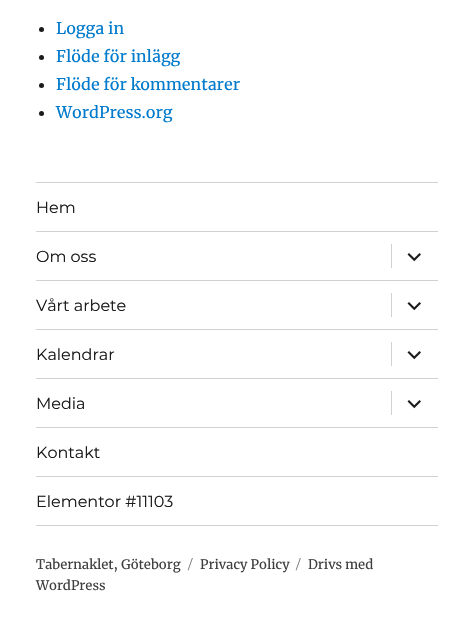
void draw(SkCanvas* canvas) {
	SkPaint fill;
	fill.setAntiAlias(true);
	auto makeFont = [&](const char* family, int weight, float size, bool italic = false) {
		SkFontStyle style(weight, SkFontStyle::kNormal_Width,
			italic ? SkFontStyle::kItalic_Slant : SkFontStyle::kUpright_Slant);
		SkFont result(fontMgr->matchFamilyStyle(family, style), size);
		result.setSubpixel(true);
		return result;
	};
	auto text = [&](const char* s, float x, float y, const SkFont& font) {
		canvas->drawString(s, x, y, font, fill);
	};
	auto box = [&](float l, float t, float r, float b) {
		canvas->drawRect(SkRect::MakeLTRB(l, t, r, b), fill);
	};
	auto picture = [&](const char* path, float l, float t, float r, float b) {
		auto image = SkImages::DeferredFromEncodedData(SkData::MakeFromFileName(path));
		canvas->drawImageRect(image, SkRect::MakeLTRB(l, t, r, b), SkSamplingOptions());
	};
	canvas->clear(0xFFFFFFFF);
	fill.setColor(0xFF1A1A1A);
	canvas->drawCircle(41.5f, 29.5f, 2.5f, fill);
	canvas->drawCircle(41.5f, 57.5f, 2.5f, fill);
	canvas->drawCircle(41.5f, 85.5f, 2.5f, fill);
	canvas->drawCircle(41.5f, 113.5f, 2.5f, fill);
	fill.setColor(0xFFD1D1D1);
	box(36, 525, 438, 526);
	box(36, 182, 438, 183);
	box(36, 231, 438, 232);
	box(391, 244, 392, 268);
	picture("image0.png", 407, 253, 421, 262);
	box(36, 280, 438, 281);
	box(391, 293, 392, 317);
	picture("image0.png", 407, 302, 421, 311);
	box(36, 329, 438, 330);
	box(391, 342, 392, 366);
	picture("image0.png", 407, 351, 421, 360);
	box(36, 378, 438, 379);
	box(391, 391, 392, 415);
	picture("image0.png", 407, 400, 421, 409);
	box(36, 427, 438, 428);
	box(36, 476, 438, 477);
	auto font1 = makeFont("Merriweather", 400, 16);
	fill.setColor(0xFF007ACC);
	text("Logga in", 56, 34, font1);
	text("Flöde för inlägg", 56, 62, font1);
	text("Flöde för kommentarer", 56, 90, font1);
	text("WordPress.org", 56, 118, font1);
	auto font2 = makeFont("Montserrat", 100, 16);
	fill.setColor(0xFF1A1A1A);
	text("Hem", 36, 213, font2);
	text("Om oss", 36, 262, font2);
	text("Vårt arbete", 36, 311, font2);
	text("Kalendrar", 36, 360, font2);
	text("Media", 36, 409, font2);
	text("Kontakt", 36, 458, font2);
	text("Elementor #11103", 36, 507, font2);
	auto font3 = makeFont("Merriweather", 400, 13);
	fill.setColor(0xFF3F3F3F);
	text("Tabernaklet, Göteborg", 36, 569, font3);
	auto font4 = makeFont("Montserrat", 100, 13);
	fill.setColor(0xFF797979);
	text("/", 188, 569, font4);
	fill.setColor(0xFF3F3F3F);
	text("Privacy Policy", 200, 569, font3);
	fill.setColor(0xFF797979);
	text("/", 296, 569, font4);
	fill.setColor(0xFF3F3F3F);
	text("Drivs med", 308, 569, font3);
	text("WordPress", 36, 590, font3);
}
